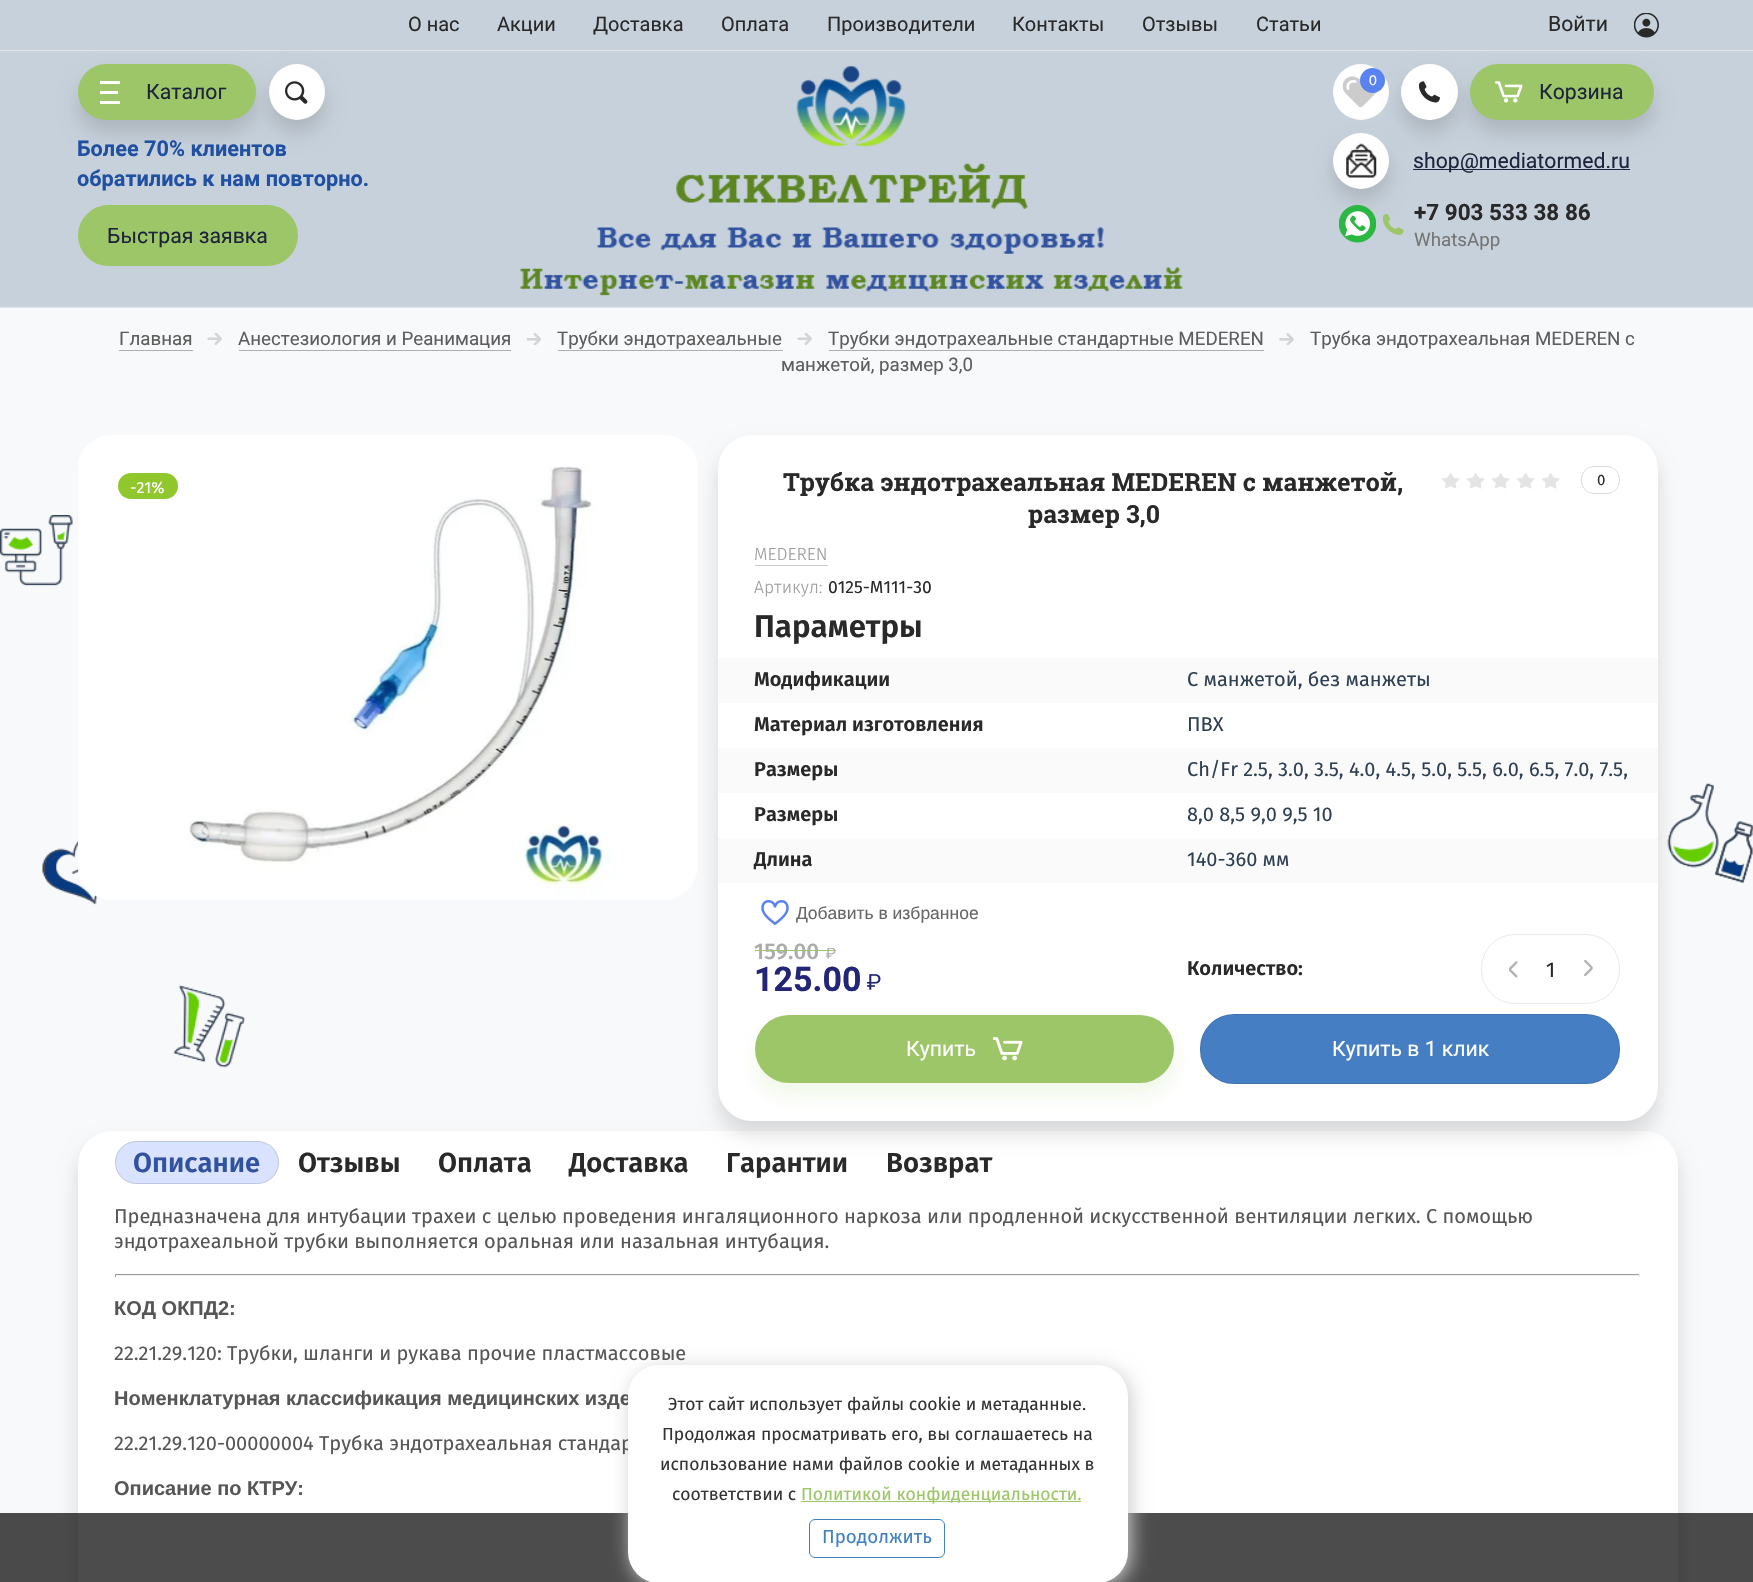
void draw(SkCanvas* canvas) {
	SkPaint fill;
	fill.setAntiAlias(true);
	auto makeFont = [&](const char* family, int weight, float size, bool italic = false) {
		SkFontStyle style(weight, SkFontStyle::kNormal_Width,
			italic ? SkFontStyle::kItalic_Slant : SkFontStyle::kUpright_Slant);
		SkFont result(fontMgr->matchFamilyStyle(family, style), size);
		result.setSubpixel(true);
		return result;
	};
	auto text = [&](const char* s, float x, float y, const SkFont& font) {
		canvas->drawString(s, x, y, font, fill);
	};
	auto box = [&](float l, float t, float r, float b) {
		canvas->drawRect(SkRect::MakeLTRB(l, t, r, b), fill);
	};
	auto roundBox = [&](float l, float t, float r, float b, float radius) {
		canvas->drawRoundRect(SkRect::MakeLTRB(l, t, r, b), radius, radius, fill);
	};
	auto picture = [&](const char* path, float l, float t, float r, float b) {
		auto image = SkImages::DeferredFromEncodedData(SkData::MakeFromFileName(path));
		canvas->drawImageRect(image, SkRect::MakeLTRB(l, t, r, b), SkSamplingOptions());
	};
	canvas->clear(0xFFC7D1DB);
	fill.setColor(0xFFE4E4E4);
	box(0, 50, 1753, 51);
	picture("image0.png", 1634, 13, 1659, 38);
	fill.setColor(0x21000000);
	fill.setMaskFilter(SkMaskFilter::MakeBlur(kNormal_SkBlurStyle, 9.5f));
	canvas->drawRoundRect(SkRect::MakeLTRB(269, 76, 325, 133), 28, 28, fill);
	fill.setMaskFilter(nullptr);
	fill.setColor(0xFFFFFFFF);
	canvas->drawCircle(297, 92, 28, fill);
	picture("image1.png", 285, 81, 308, 104);
	fill.setColor(0x21000000);
	fill.setMaskFilter(SkMaskFilter::MakeBlur(kNormal_SkBlurStyle, 9.5f));
	canvas->drawRoundRect(SkRect::MakeLTRB(78, 76, 256, 133), 28.5f, 28.5f, fill);
	fill.setMaskFilter(nullptr);
	fill.setColor(0xFF9CC667);
	roundBox(78, 64, 256, 120, 28);
	fill.setColor(0xFFFFFFFF);
	box(100, 81, 120, 84);
	box(100, 91, 118, 94);
	box(100, 101, 120, 104);
	fill.setColor(0xFF9CC667);
	roundBox(78, 205, 298, 266, 30.5f);
	picture("image2.png", 520, 66, 1183, 296);
	fill.setColor(0xFFFFFFFF);
	canvas->drawCircle(1361, 92, 28, fill);
	picture("image4.png", 1343, 76, 1378, 108);
	fill.setColor(0xFF5983F0);
	canvas->drawCircle(1372.5f, 80.5f, 12.5f, fill);
	fill.setColor(0x21000000);
	fill.setMaskFilter(SkMaskFilter::MakeBlur(kNormal_SkBlurStyle, 9.5f));
	canvas->drawRoundRect(SkRect::MakeLTRB(1401, 76, 1458, 133), 28.5f, 28.5f, fill);
	fill.setMaskFilter(nullptr);
	fill.setColor(0xFFFFFFFF);
	roundBox(1401, 64, 1458, 120, 28);
	picture("image3.png", 1419, 81, 1440, 103);
	fill.setColor(0x21000000);
	fill.setMaskFilter(SkMaskFilter::MakeBlur(kNormal_SkBlurStyle, 9.5f));
	canvas->drawRoundRect(SkRect::MakeLTRB(1470, 76, 1654, 133), 28.5f, 28.5f, fill);
	fill.setMaskFilter(nullptr);
	fill.setColor(0xFF9CC667);
	roundBox(1470, 64, 1654, 120, 28);
	picture("image5.png", 1495, 81, 1523, 103);
	fill.setColor(0xFF1E243C);
	box(1413, 169, 1630, 170);
	fill.setColor(0x21000000);
	fill.setMaskFilter(SkMaskFilter::MakeBlur(kNormal_SkBlurStyle, 9.5f));
	canvas->drawRoundRect(SkRect::MakeLTRB(1333, 145, 1389, 201), 28, 28, fill);
	fill.setMaskFilter(nullptr);
	fill.setColor(0xFFFFFFFF);
	canvas->drawCircle(1361, 161, 28, fill);
	picture("image6.png", 1346, 143, 1377, 178);
	picture("image7.png", 1339, 205, 1376, 243);
	picture("image8.png", 1383, 214, 1404, 235);
	picture("image9.png", 0, 307, 1753, 1582);
	fill.setColor(0xFFADAEAF);
	box(119, 350, 193, 351);
	picture("image10.png", 207, 333, 222, 345);
	box(239, 350, 511, 351);
	picture("image11.png", 526, 333, 541, 345);
	box(558, 350, 783, 351);
	picture("image12.png", 797, 333, 812, 345);
	box(829, 350, 1264, 351);
	picture("image13.png", 1279, 333, 1294, 345);
	fill.setColor(0x21000000);
	fill.setMaskFilter(SkMaskFilter::MakeBlur(kNormal_SkBlurStyle, 9.5f));
	canvas->drawRoundRect(SkRect::MakeLTRB(78, 1144, 1678, 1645), 34, 34, fill);
	fill.setMaskFilter(nullptr);
	fill.setColor(0xFFFFFFFF);
	roundBox(78, 1131, 1678, 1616, 34);
	fill.setColor(0x21000000);
	fill.setMaskFilter(SkMaskFilter::MakeBlur(kNormal_SkBlurStyle, 9.5f));
	canvas->drawRoundRect(SkRect::MakeLTRB(718, 448, 1658, 1134), 34, 34, fill);
	fill.setMaskFilter(nullptr);
	picture("image14.png", 78, 435, 698, 900);
	fill.setColor(0xFF8FC72D);
	roundBox(118, 473, 178, 499, 13);
	fill.setColor(0xFFFFFFFF);
	roundBox(718, 435, 1658, 1121, 34);
	picture("image15.png", 1441, 473, 1560, 489);
	fill.setStyle(SkPaint::kStroke_Style);
	fill.setStrokeWidth(1);
	fill.setColor(0xFFDFDFDF);
	canvas->drawRoundRect(SkRect::MakeLTRB(1581.5f, 466.5f, 1619.5f, 493.5f), 12.5f, 12.5f, fill);
	fill.setStyle(SkPaint::kFill_Style);
	fill.setColor(0xFFCCCCCC);
	box(755, 565, 828, 566);
	fill.setColor(0xFFFAFAFA);
	box(718, 658, 1658, 703);
	box(718, 748, 1658, 793);
	box(718, 838, 1658, 883);
	picture("image16.png", 761, 900, 789, 926);
	picture("image17.png", 825, 948, 836, 959);
	picture("image18.png", 867, 974, 881, 990);
	fill.setStyle(SkPaint::kStroke_Style);
	fill.setColor(0xFFEAEAEA);
	canvas->drawRoundRect(SkRect::MakeLTRB(1481.5f, 934.5f, 1619.5f, 1003.5f), 33.5f, 33.5f, fill);
	picture("image19.png", 1509, 961, 1518, 978);
	picture("image20.png", 1584, 960, 1593, 976);
	fill.setStyle(SkPaint::kFill_Style);
	fill.setColor(0x269CC667);
	fill.setMaskFilter(SkMaskFilter::MakeBlur(kNormal_SkBlurStyle, 9.5f));
	canvas->drawRoundRect(SkRect::MakeLTRB(755, 1028, 1174, 1095), 33.5f, 33.5f, fill);
	fill.setMaskFilter(nullptr);
	fill.setColor(0xFF9CC667);
	roundBox(755, 1015, 1174, 1083, 34);
	picture("image21.png", 993, 1037, 1023, 1061);
	fill.setColor(0xFF467EC3);
	roundBox(1200, 1014, 1620, 1084, 34);
	fill.setStyle(SkPaint::kStroke_Style);
	fill.setColor(0x21292929);
	canvas->drawRoundRect(SkRect::MakeLTRB(1200.5f, 1014.5f, 1619.5f, 1083.5f), 33.5f, 33.5f, fill);
	fill.setStyle(SkPaint::kFill_Style);
	fill.setColor(0xFFD9E2FF);
	roundBox(115, 1141, 279, 1184, 21.5f);
	fill.setStyle(SkPaint::kStroke_Style);
	fill.setColor(0x26292929);
	canvas->drawRoundRect(SkRect::MakeLTRB(115.5f, 1141.5f, 278.5f, 1183.5f), 21, 21, fill);
	fill.setStyle(SkPaint::kFill_Style);
	fill.setColor(0xFF9F9F9F);
	box(115, 1274, 1640, 1275);
	fill.setColor(0xFFEEEEEE);
	box(1639, 1274, 1640, 1277);
	box(115, 1275, 1640, 1276);
	fill.setColor(0xFF9F9F9F);
	box(115, 1274, 116, 1277);
	fill.setColor(0xB3000000);
	box(0, 1513, 1753, 1582);
	fill.setColor(0xFFCCCCCC);
	fill.setMaskFilter(SkMaskFilter::MakeBlur(kNormal_SkBlurStyle, 9.5f));
	canvas->drawRoundRect(SkRect::MakeLTRB(631, 1369, 1131, 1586), 31, 31, fill);
	fill.setMaskFilter(nullptr);
	auto font1 = makeFont("Roboto", 400, 20);
	fill.setColor(0xFF292929);
	text("О нас", 408, 31, font1);
	text("Акции", 497, 31, font1);
	text("Доставка", 593, 31, font1);
	text("Оплата", 721, 31, font1);
	text("Производители", 827, 31, font1);
	text("Контакты", 1012, 31, font1);
	text("Отзывы", 1142, 31, font1);
	text("Статьи", 1256, 31, font1);
	auto font2 = makeFont("Roboto", 400, 21.25f);
	text("Войти", 1548, 31, font2);
	fill.setColor(0xFF1E243C);
	text("Каталог", 146, 99, font2);
	auto font3 = makeFont("Roboto", 700, 21.7f);
	fill.setColor(0xFF1F50A1);
	text("Более 70% клиентов", 77, 156, font3);
	text("обратились к нам повторно.", 77, 186, font3);
	fill.setColor(0xFF1E243C);
	text("Быстрая заявка", 107, 243, font2);
	auto font4 = makeFont("Liberation Sans", 400, 14);
	fill.setColor(0xFFFFFFFF);
	text("0", 1369, 85, font4);
	fill.setColor(0xFF1E243C);
	text("Корзина", 1539, 99, font2);
	text("shop@mediatormed.ru", 1413, 168, font2);
	auto font5 = makeFont("Roboto", 700, 22.5f);
	fill.setColor(0xFF292929);
	text("+7 903 533 38 86", 1414, 220, font5);
	auto font6 = makeFont("Roboto", 400, 18.75f);
	fill.setColor(0xFF757575);
	text("WhatsApp", 1414, 246, font6);
	fill.setColor(0xFF5D5D5D);
	text("Главная", 119, 345, font6);
	text("Анестезиология и Реанимация", 238, 345, font6);
	text("Трубки эндотрахеальные", 557, 345, font6);
	text("Трубки эндотрахеальные стандартные MEDEREN", 828, 345, font6);
	text("Трубка эндотрахеальная MEDEREN с", 1310, 345, font6);
	text("манжетой, размер 3,0", 781, 371, font6);
	auto font7 = makeFont("Fira Sans", 400, 16);
	fill.setColor(0xFFFFFFFF);
	text("-21%", 130, 493, font7);
	auto font8 = makeFont("Roboto Slab", 700, 25);
	fill.setColor(0xFF292929);
	text("Трубка эндотрахеальная MEDEREN с манжетой,", 783, 491, font8);
	text("размер 3,0", 1028, 523, font8);
	auto font9 = makeFont("Fira Sans", 400, 15);
	text("0", 1597, 485, font9);
	auto font10 = makeFont("Fira Sans", 300, 17.5f);
	fill.setColor(0xFF9B9B9B);
	text("MEDEREN", 754, 560, font10);
	text("Артикул:", 754, 593, font10);
	auto font11 = makeFont("Fira Sans", 400, 17.5f);
	fill.setColor(0xFF292929);
	text("0125-M111-30", 828, 593, font11);
	auto font12 = makeFont("Fira Sans", 600, 31.25f);
	text("Параметры", 754, 637, font12);
	auto font13 = makeFont("Fira Sans", 600, 20);
	text("Модификации", 754, 686, font13);
	auto font14 = makeFont("Fira Sans", 400, 20);
	fill.setColor(0xFF2F4053);
	text("С манжетой, без манжеты", 1187, 686, font14);
	fill.setColor(0xFF292929);
	text("Материал изготовления", 754, 731, font13);
	fill.setColor(0xFF2F4053);
	text("ПВХ", 1187, 731, font14);
	fill.setColor(0xFF292929);
	text("Размеры", 754, 776, font13);
	fill.setColor(0xFF2F4053);
	text("Ch/Fr 2.5, 3.0, 3.5, 4.0, 4.5, 5.0, 5.5, 6.0, 6.5, 7.0, 7.5,", 1187, 776, font14);
	fill.setColor(0xFF292929);
	text("Размеры", 754, 821, font13);
	fill.setColor(0xFF2F4053);
	text("8,0 8,5 9,0 9,5 10", 1187, 821, font14);
	fill.setColor(0xFF292929);
	text("Длина", 754, 866, font13);
	fill.setColor(0xFF2F4053);
	text("140-360 мм", 1187, 866, font14);
	auto font15 = makeFont("Liberation Sans", 400, 17.5f);
	fill.setColor(0xFF666666);
	text("Добавить в избранное", 796, 919, font15);
	auto font16 = makeFont("Fira Sans", 500, 22.5f);
	fill.setColor(0xFFADACAC);
	text("159.00", 754, 959, font16);
	fill.setColor(0xFF9CC667);
	box(755, 950, 836, 951);
	auto font17 = makeFont("Roboto", 700, 34);
	fill.setColor(0xFF232676);
	text("125.00", 754, 991, font17);
	fill.setColor(0xFF292929);
	text("Количество:", 1187, 975, font13);
	auto font18 = makeFont("Fira Sans", 400, 21.25f);
	text("1", 1546, 977, font18);
	fill.setColor(0xFFFFFFFF);
	text("Купить", 906, 1056, font2);
	text("Купить в 1 клик", 1332, 1056, font2);
	auto font19 = makeFont("Fira Sans", 600, 27.5f);
	fill.setColor(0xFF31529E);
	text("Описание", 133, 1172, font19);
	fill.setColor(0xFF292929);
	text("Отзывы", 298, 1172, font19);
	text("Оплата", 438, 1172, font19);
	text("Доставка", 569, 1172, font19);
	text("Гарантии", 726, 1172, font19);
	text("Возврат", 886, 1172, font19);
	fill.setColor(0xFF565656);
	text("Предназначена для интубации трахеи с целью проведения ингаляционного наркоза или продленной искусственной вентиляции легких. С помощью", 114, 1223, font14);
	text("эндотрахеальной трубки выполняется оральная или назальная интубация.", 114, 1248, font14);
	auto font20 = makeFont("Liberation Sans", 700, 20);
	text("КОД ОКПД2:", 114, 1315, font20);
	text("22.21.29.120: Трубки, шланги и рукава прочие пластмассовые", 114, 1360, font14);
	text("Номенклатурная классификация медицинских изде", 114, 1405, font20);
	text("22.21.29.120-00000004 Трубка эндотрахеальная стандар", 114, 1450, font14);
	text("Описание по КТРУ:", 114, 1495, font20);
	fill.setColor(0xFFFFFFFF);
	roundBox(628, 1365, 1128, 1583, 31);
	fill.setColor(0xFF333333);
	text("Этот сайт использует файлы cookie и метаданные.", 668, 1410, font11);
	text("Продолжая просматривать его, вы соглашаетесь на", 662, 1440, font11);
	text("использование нами файлов cookie и метаданных в", 660, 1470, font11);
	text("соответствии с", 672, 1500, font11);
	fill.setColor(0xFF9CC667);
	box(801, 1501, 1081, 1502);
	text("Политикой конфиденциальности.", 801, 1500, font11);
	fill.setStyle(SkPaint::kStroke_Style);
	fill.setColor(0xFF4082C0);
	canvas->drawRoundRect(SkRect::MakeLTRB(809.5f, 1519.5f, 944.5f, 1557.5f), 5.5f, 5.5f, fill);
	auto font21 = makeFont("Fira Sans", 400, 18.75f);
	fill.setStyle(SkPaint::kFill_Style);
	text("Продолжить", 822, 1543, font21);
}
